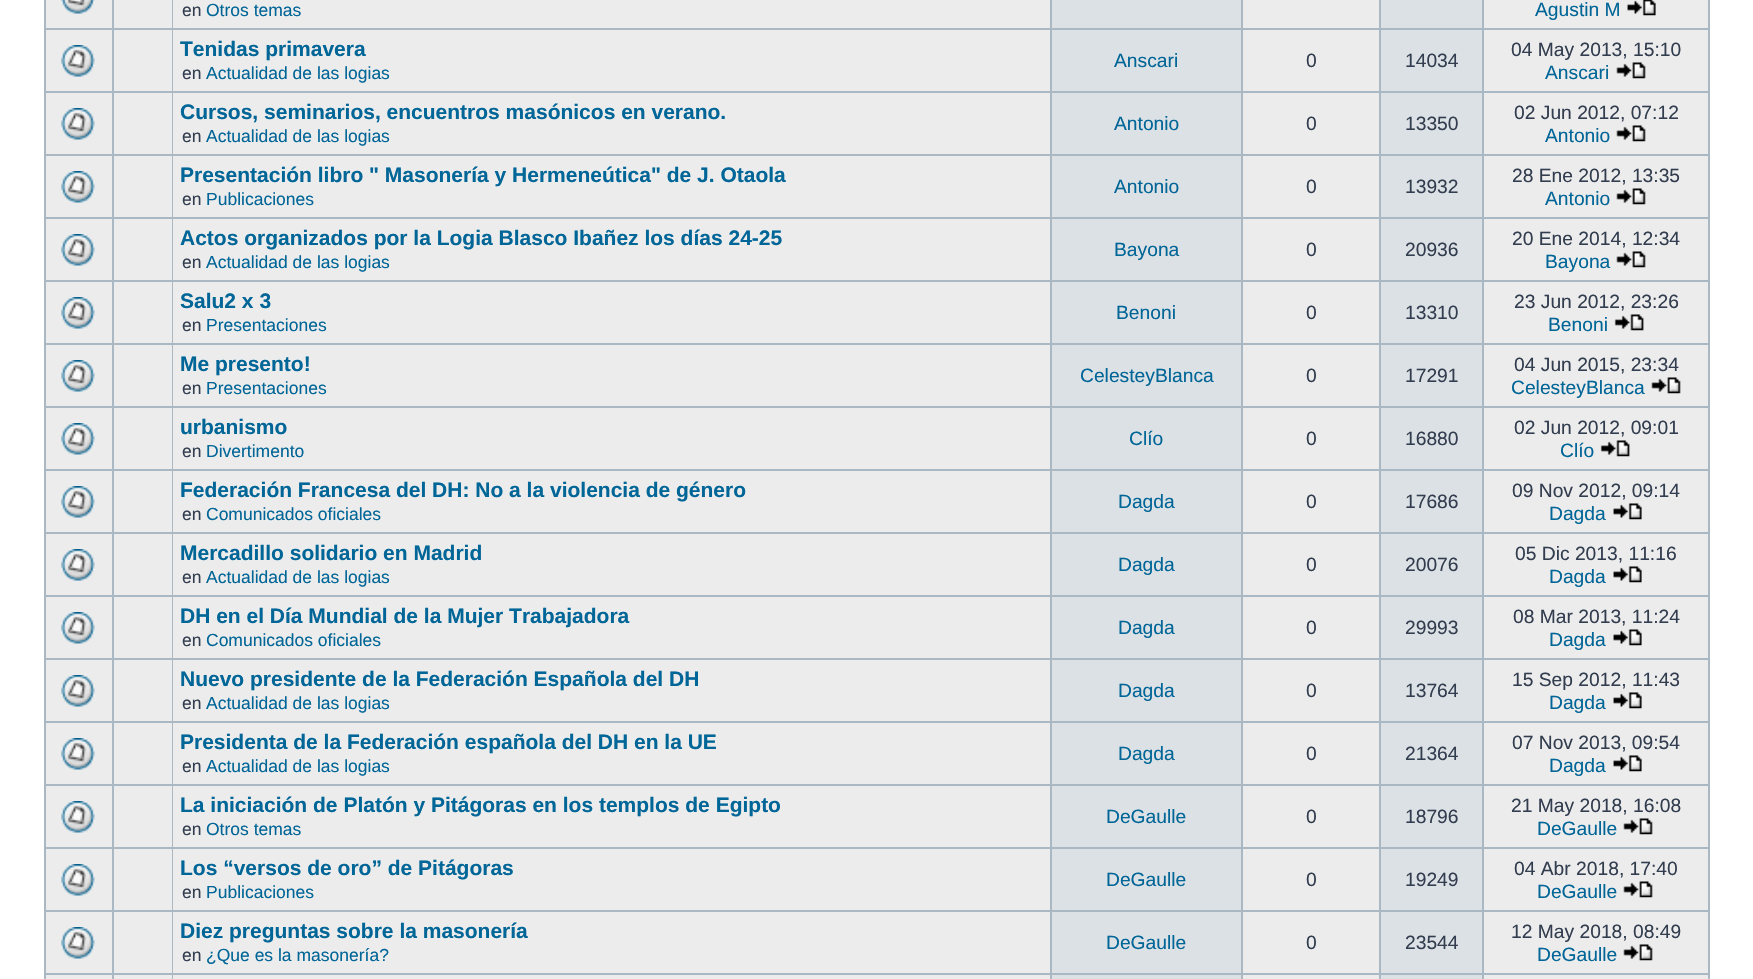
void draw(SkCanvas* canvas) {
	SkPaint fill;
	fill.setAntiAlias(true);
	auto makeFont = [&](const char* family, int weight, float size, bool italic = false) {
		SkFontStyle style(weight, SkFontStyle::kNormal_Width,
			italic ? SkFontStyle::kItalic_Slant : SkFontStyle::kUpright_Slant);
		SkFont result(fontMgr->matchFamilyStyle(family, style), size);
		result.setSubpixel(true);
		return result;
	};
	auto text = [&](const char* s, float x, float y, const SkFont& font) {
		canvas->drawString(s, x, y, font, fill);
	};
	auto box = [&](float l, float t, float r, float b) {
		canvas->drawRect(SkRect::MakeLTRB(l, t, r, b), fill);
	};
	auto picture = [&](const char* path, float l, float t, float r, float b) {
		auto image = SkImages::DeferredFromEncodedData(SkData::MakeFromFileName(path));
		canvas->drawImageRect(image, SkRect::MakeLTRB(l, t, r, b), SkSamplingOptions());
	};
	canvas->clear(0xFFFFFFFF);
	fill.setColor(0xFFA9B8C2);
	box(44, 0, 1710, 979);
	fill.setColor(0xFFECECEC);
	box(46, 0, 112, 28);
	picture("image0.png", 61, 0, 95, 14);
	box(114, 0, 172, 28);
	box(173, 0, 1050, 28);
	fill.setColor(0xFFDCE1E5);
	box(1052, 0, 1241, 28);
	fill.setColor(0xFFECECEC);
	box(1243, 0, 1379, 28);
	fill.setColor(0xFFDCE1E5);
	box(1381, 0, 1482, 28);
	fill.setColor(0xFFECECEC);
	box(1484, 0, 1708, 28);
	picture("image1.png", 1627, 0, 1656, 16);
	box(46, 30, 112, 91);
	picture("image2.png", 61, 45, 95, 77);
	box(114, 30, 172, 91);
	box(173, 30, 1050, 91);
	fill.setColor(0xFFDCE1E5);
	box(1052, 30, 1241, 91);
	fill.setColor(0xFFECECEC);
	box(1243, 30, 1379, 91);
	fill.setColor(0xFFDCE1E5);
	box(1381, 30, 1482, 91);
	fill.setColor(0xFFECECEC);
	box(1484, 30, 1708, 91);
	picture("image3.png", 1616, 62, 1646, 79);
	box(46, 93, 112, 154);
	picture("image2.png", 61, 108, 95, 140);
	box(114, 93, 172, 154);
	box(173, 93, 1050, 154);
	fill.setColor(0xFFDCE1E5);
	box(1052, 93, 1241, 154);
	fill.setColor(0xFFECECEC);
	box(1243, 93, 1379, 154);
	fill.setColor(0xFFDCE1E5);
	box(1381, 93, 1482, 154);
	fill.setColor(0xFFECECEC);
	box(1484, 93, 1708, 154);
	picture("image3.png", 1616, 125, 1646, 142);
	box(46, 156, 112, 217);
	picture("image2.png", 61, 171, 95, 203);
	box(114, 156, 172, 217);
	box(173, 156, 1050, 217);
	fill.setColor(0xFFDCE1E5);
	box(1052, 156, 1241, 217);
	fill.setColor(0xFFECECEC);
	box(1243, 156, 1379, 217);
	fill.setColor(0xFFDCE1E5);
	box(1381, 156, 1482, 217);
	fill.setColor(0xFFECECEC);
	box(1484, 156, 1708, 217);
	picture("image3.png", 1616, 188, 1646, 205);
	box(46, 219, 112, 280);
	picture("image2.png", 61, 234, 95, 266);
	box(114, 219, 172, 280);
	box(173, 219, 1050, 280);
	fill.setColor(0xFFDCE1E5);
	box(1052, 219, 1241, 280);
	fill.setColor(0xFFECECEC);
	box(1243, 219, 1379, 280);
	fill.setColor(0xFFDCE1E5);
	box(1381, 219, 1482, 280);
	fill.setColor(0xFFECECEC);
	box(1484, 219, 1708, 280);
	picture("image3.png", 1616, 251, 1646, 268);
	box(46, 282, 112, 343);
	picture("image2.png", 61, 297, 95, 329);
	box(114, 282, 172, 343);
	box(173, 282, 1050, 343);
	fill.setColor(0xFFDCE1E5);
	box(1052, 282, 1241, 343);
	fill.setColor(0xFFECECEC);
	box(1243, 282, 1379, 343);
	fill.setColor(0xFFDCE1E5);
	box(1381, 282, 1482, 343);
	fill.setColor(0xFFECECEC);
	box(1484, 282, 1708, 343);
	picture("image4.png", 1614, 314, 1644, 331);
	box(46, 345, 112, 406);
	picture("image2.png", 61, 360, 95, 392);
	box(114, 345, 172, 406);
	box(173, 345, 1050, 406);
	fill.setColor(0xFFDCE1E5);
	box(1052, 345, 1241, 406);
	fill.setColor(0xFFECECEC);
	box(1243, 345, 1379, 406);
	fill.setColor(0xFFDCE1E5);
	box(1381, 345, 1482, 406);
	fill.setColor(0xFFECECEC);
	box(1484, 345, 1708, 406);
	picture("image5.png", 1651, 377, 1681, 394);
	box(46, 408, 112, 469);
	picture("image2.png", 61, 423, 95, 455);
	box(114, 408, 172, 469);
	box(173, 408, 1050, 469);
	fill.setColor(0xFFDCE1E5);
	box(1052, 408, 1241, 469);
	fill.setColor(0xFFECECEC);
	box(1243, 408, 1379, 469);
	fill.setColor(0xFFDCE1E5);
	box(1381, 408, 1482, 469);
	fill.setColor(0xFFECECEC);
	box(1484, 408, 1708, 469);
	picture("image4.png", 1600, 440, 1630, 457);
	box(46, 471, 112, 532);
	picture("image2.png", 61, 486, 95, 518);
	box(114, 471, 172, 532);
	box(173, 471, 1050, 532);
	fill.setColor(0xFFDCE1E5);
	box(1052, 471, 1241, 532);
	fill.setColor(0xFFECECEC);
	box(1243, 471, 1379, 532);
	fill.setColor(0xFFDCE1E5);
	box(1381, 471, 1482, 532);
	fill.setColor(0xFFECECEC);
	box(1484, 471, 1708, 532);
	picture("image6.png", 1613, 503, 1642, 520);
	box(46, 534, 112, 595);
	picture("image2.png", 61, 549, 95, 581);
	box(114, 534, 172, 595);
	box(173, 534, 1050, 595);
	fill.setColor(0xFFDCE1E5);
	box(1052, 534, 1241, 595);
	fill.setColor(0xFFECECEC);
	box(1243, 534, 1379, 595);
	fill.setColor(0xFFDCE1E5);
	box(1381, 534, 1482, 595);
	fill.setColor(0xFFECECEC);
	box(1484, 534, 1708, 595);
	picture("image6.png", 1613, 566, 1642, 583);
	box(46, 597, 112, 658);
	picture("image2.png", 61, 612, 95, 644);
	box(114, 597, 172, 658);
	box(173, 597, 1050, 658);
	fill.setColor(0xFFDCE1E5);
	box(1052, 597, 1241, 658);
	fill.setColor(0xFFECECEC);
	box(1243, 597, 1379, 658);
	fill.setColor(0xFFDCE1E5);
	box(1381, 597, 1482, 658);
	fill.setColor(0xFFECECEC);
	box(1484, 597, 1708, 658);
	picture("image6.png", 1613, 629, 1642, 646);
	box(46, 660, 112, 721);
	picture("image2.png", 61, 675, 95, 707);
	box(114, 660, 172, 721);
	box(173, 660, 1050, 721);
	fill.setColor(0xFFDCE1E5);
	box(1052, 660, 1241, 721);
	fill.setColor(0xFFECECEC);
	box(1243, 660, 1379, 721);
	fill.setColor(0xFFDCE1E5);
	box(1381, 660, 1482, 721);
	fill.setColor(0xFFECECEC);
	box(1484, 660, 1708, 721);
	picture("image6.png", 1613, 692, 1642, 709);
	box(46, 723, 112, 784);
	picture("image2.png", 61, 738, 95, 770);
	box(114, 723, 172, 784);
	box(173, 723, 1050, 784);
	fill.setColor(0xFFDCE1E5);
	box(1052, 723, 1241, 784);
	fill.setColor(0xFFECECEC);
	box(1243, 723, 1379, 784);
	fill.setColor(0xFFDCE1E5);
	box(1381, 723, 1482, 784);
	fill.setColor(0xFFECECEC);
	box(1484, 723, 1708, 784);
	picture("image6.png", 1613, 755, 1642, 772);
	box(46, 786, 112, 847);
	picture("image2.png", 61, 801, 95, 833);
	box(114, 786, 172, 847);
	box(173, 786, 1050, 847);
	fill.setColor(0xFFDCE1E5);
	box(1052, 786, 1241, 847);
	fill.setColor(0xFFECECEC);
	box(1243, 786, 1379, 847);
	fill.setColor(0xFFDCE1E5);
	box(1381, 786, 1482, 847);
	fill.setColor(0xFFECECEC);
	box(1484, 786, 1708, 847);
	picture("image5.png", 1623, 818, 1653, 835);
	box(46, 849, 112, 910);
	picture("image2.png", 61, 864, 95, 896);
	box(114, 849, 172, 910);
	box(173, 849, 1050, 910);
	fill.setColor(0xFFDCE1E5);
	box(1052, 849, 1241, 910);
	fill.setColor(0xFFECECEC);
	box(1243, 849, 1379, 910);
	fill.setColor(0xFFDCE1E5);
	box(1381, 849, 1482, 910);
	fill.setColor(0xFFECECEC);
	box(1484, 849, 1708, 910);
	picture("image5.png", 1623, 881, 1653, 898);
	box(46, 912, 112, 973);
	picture("image2.png", 61, 927, 95, 959);
	box(114, 912, 172, 973);
	box(173, 912, 1050, 973);
	fill.setColor(0xFFDCE1E5);
	box(1052, 912, 1241, 973);
	fill.setColor(0xFFECECEC);
	box(1243, 912, 1379, 973);
	fill.setColor(0xFFDCE1E5);
	box(1381, 912, 1482, 973);
	fill.setColor(0xFFECECEC);
	box(1484, 912, 1708, 973);
	picture("image7.png", 1623, 944, 1653, 961);
	box(46, 975, 112, 979);
	box(114, 975, 172, 979);
	box(173, 975, 1050, 979);
	fill.setColor(0xFFDCE1E5);
	box(1052, 975, 1241, 979);
	fill.setColor(0xFFECECEC);
	box(1243, 975, 1379, 979);
	fill.setColor(0xFFDCE1E5);
	box(1381, 975, 1482, 979);
	fill.setColor(0xFFECECEC);
	box(1484, 975, 1708, 979);
	auto font1 = makeFont("Liberation Sans", 400, 17.5f);
	fill.setColor(0xFF323D4F);
	text("en", 182, 16, font1);
	fill.setColor(0xFF006597);
	text("Otros temas", 206, 16, font1);
	auto font2 = makeFont("Liberation Sans", 400, 19.25f);
	text("Agustin M", 1535, 16, font2);
	auto font3 = makeFont("Liberation Sans", 700, 21);
	text("Tenidas primavera", 180, 56, font3);
	fill.setColor(0xFF323D4F);
	text("en", 182, 79, font1);
	fill.setColor(0xFF006597);
	text("Actualidad de las logias", 206, 79, font1);
	text("Anscari", 1114, 67, font2);
	fill.setColor(0xFF323D4F);
	text("0", 1306, 67, font2);
	text("14034", 1405, 67, font2);
	text("04 May 2013, 15:10", 1511, 56, font2);
	fill.setColor(0xFF006597);
	text("Anscari", 1545, 79, font2);
	text("Cursos, seminarios, encuentros masónicos en verano.", 180, 119, font3);
	fill.setColor(0xFF323D4F);
	text("en", 182, 142, font1);
	fill.setColor(0xFF006597);
	text("Actualidad de las logias", 206, 142, font1);
	text("Antonio", 1114, 130, font2);
	fill.setColor(0xFF323D4F);
	text("0", 1306, 130, font2);
	text("13350", 1405, 130, font2);
	text("02 Jun 2012, 07:12", 1514, 119, font2);
	fill.setColor(0xFF006597);
	text("Antonio", 1545, 142, font2);
	text("Presentación libro \" Masonería y Hermeneútica\" de J. Otaola", 180, 182, font3);
	fill.setColor(0xFF323D4F);
	text("en", 182, 205, font1);
	fill.setColor(0xFF006597);
	text("Publicaciones", 206, 205, font1);
	text("Antonio", 1114, 193, font2);
	fill.setColor(0xFF323D4F);
	text("0", 1306, 193, font2);
	text("13932", 1405, 193, font2);
	text("28 Ene 2012, 13:35", 1512, 182, font2);
	fill.setColor(0xFF006597);
	text("Antonio", 1545, 205, font2);
	text("Actos organizados por la Logia Blasco Ibañez los días 24-25", 180, 245, font3);
	fill.setColor(0xFF323D4F);
	text("en", 182, 268, font1);
	fill.setColor(0xFF006597);
	text("Actualidad de las logias", 206, 268, font1);
	text("Bayona", 1114, 256, font2);
	fill.setColor(0xFF323D4F);
	text("0", 1306, 256, font2);
	text("20936", 1405, 256, font2);
	text("20 Ene 2014, 12:34", 1512, 245, font2);
	fill.setColor(0xFF006597);
	text("Bayona", 1545, 268, font2);
	text("Salu2 x 3", 180, 308, font3);
	fill.setColor(0xFF323D4F);
	text("en", 182, 331, font1);
	fill.setColor(0xFF006597);
	text("Presentaciones", 206, 331, font1);
	text("Benoni", 1116, 319, font2);
	fill.setColor(0xFF323D4F);
	text("0", 1306, 319, font2);
	text("13310", 1405, 319, font2);
	text("23 Jun 2012, 23:26", 1514, 308, font2);
	fill.setColor(0xFF006597);
	text("Benoni", 1548, 331, font2);
	text("Me presento!", 180, 371, font3);
	fill.setColor(0xFF323D4F);
	text("en", 182, 394, font1);
	fill.setColor(0xFF006597);
	text("Presentaciones", 206, 394, font1);
	text("CelesteyBlanca", 1080, 382, font2);
	fill.setColor(0xFF323D4F);
	text("0", 1306, 382, font2);
	text("17291", 1405, 382, font2);
	text("04 Jun 2015, 23:34", 1514, 371, font2);
	fill.setColor(0xFF006597);
	text("CelesteyBlanca", 1511, 394, font2);
	text("urbanismo", 180, 434, font3);
	fill.setColor(0xFF323D4F);
	text("en", 182, 457, font1);
	fill.setColor(0xFF006597);
	text("Divertimento", 206, 457, font1);
	text("Clío", 1129, 445, font2);
	fill.setColor(0xFF323D4F);
	text("0", 1306, 445, font2);
	text("16880", 1405, 445, font2);
	text("02 Jun 2012, 09:01", 1514, 434, font2);
	fill.setColor(0xFF006597);
	text("Clío", 1560, 457, font2);
	text("Federación Francesa del DH: No a la violencia de género", 180, 497, font3);
	fill.setColor(0xFF323D4F);
	text("en", 182, 520, font1);
	fill.setColor(0xFF006597);
	text("Comunicados oficiales", 206, 520, font1);
	text("Dagda", 1118, 508, font2);
	fill.setColor(0xFF323D4F);
	text("0", 1306, 508, font2);
	text("17686", 1405, 508, font2);
	text("09 Nov 2012, 09:14", 1512, 497, font2);
	fill.setColor(0xFF006597);
	text("Dagda", 1549, 520, font2);
	text("Mercadillo solidario en Madrid", 180, 560, font3);
	fill.setColor(0xFF323D4F);
	text("en", 182, 583, font1);
	fill.setColor(0xFF006597);
	text("Actualidad de las logias", 206, 583, font1);
	text("Dagda", 1118, 571, font2);
	fill.setColor(0xFF323D4F);
	text("0", 1306, 571, font2);
	text("20076", 1405, 571, font2);
	text("05 Dic 2013, 11:16", 1515, 560, font2);
	fill.setColor(0xFF006597);
	text("Dagda", 1549, 583, font2);
	text("DH en el Día Mundial de la Mujer Trabajadora", 180, 623, font3);
	fill.setColor(0xFF323D4F);
	text("en", 182, 646, font1);
	fill.setColor(0xFF006597);
	text("Comunicados oficiales", 206, 646, font1);
	text("Dagda", 1118, 634, font2);
	fill.setColor(0xFF323D4F);
	text("0", 1306, 634, font2);
	text("29993", 1405, 634, font2);
	text("08 Mar 2013, 11:24", 1513, 623, font2);
	fill.setColor(0xFF006597);
	text("Dagda", 1549, 646, font2);
	text("Nuevo presidente de la Federación Española del DH", 180, 686, font3);
	fill.setColor(0xFF323D4F);
	text("en", 182, 709, font1);
	fill.setColor(0xFF006597);
	text("Actualidad de las logias", 206, 709, font1);
	text("Dagda", 1118, 697, font2);
	fill.setColor(0xFF323D4F);
	text("0", 1306, 697, font2);
	text("13764", 1405, 697, font2);
	text("15 Sep 2012, 11:43", 1512, 686, font2);
	fill.setColor(0xFF006597);
	text("Dagda", 1549, 709, font2);
	text("Presidenta de la Federación española del DH en la UE", 180, 749, font3);
	fill.setColor(0xFF323D4F);
	text("en", 182, 772, font1);
	fill.setColor(0xFF006597);
	text("Actualidad de las logias", 206, 772, font1);
	text("Dagda", 1118, 760, font2);
	fill.setColor(0xFF323D4F);
	text("0", 1306, 760, font2);
	text("21364", 1405, 760, font2);
	text("07 Nov 2013, 09:54", 1512, 749, font2);
	fill.setColor(0xFF006597);
	text("Dagda", 1549, 772, font2);
	text("La iniciación de Platón y Pitágoras en los templos de Egipto", 180, 812, font3);
	fill.setColor(0xFF323D4F);
	text("en", 182, 835, font1);
	fill.setColor(0xFF006597);
	text("Otros temas", 206, 835, font1);
	text("DeGaulle", 1106, 823, font2);
	fill.setColor(0xFF323D4F);
	text("0", 1306, 823, font2);
	text("18796", 1405, 823, font2);
	text("21 May 2018, 16:08", 1511, 812, font2);
	fill.setColor(0xFF006597);
	text("DeGaulle", 1537, 835, font2);
	text("Los “versos de oro” de Pitágoras", 180, 875, font3);
	fill.setColor(0xFF323D4F);
	text("en", 182, 898, font1);
	fill.setColor(0xFF006597);
	text("Publicaciones", 206, 898, font1);
	text("DeGaulle", 1106, 886, font2);
	fill.setColor(0xFF323D4F);
	text("0", 1306, 886, font2);
	text("19249", 1405, 886, font2);
	text("04 Abr 2018, 17:40", 1514, 875, font2);
	fill.setColor(0xFF006597);
	text("DeGaulle", 1537, 898, font2);
	text("Diez preguntas sobre la masonería", 180, 938, font3);
	fill.setColor(0xFF323D4F);
	text("en", 182, 961, font1);
	fill.setColor(0xFF006597);
	text("¿Que es la masonería?", 206, 961, font1);
	text("DeGaulle", 1106, 949, font2);
	fill.setColor(0xFF323D4F);
	text("0", 1306, 949, font2);
	text("23544", 1405, 949, font2);
	text("12 May 2018, 08:49", 1511, 938, font2);
	fill.setColor(0xFF006597);
	text("DeGaulle", 1537, 961, font2);
}
